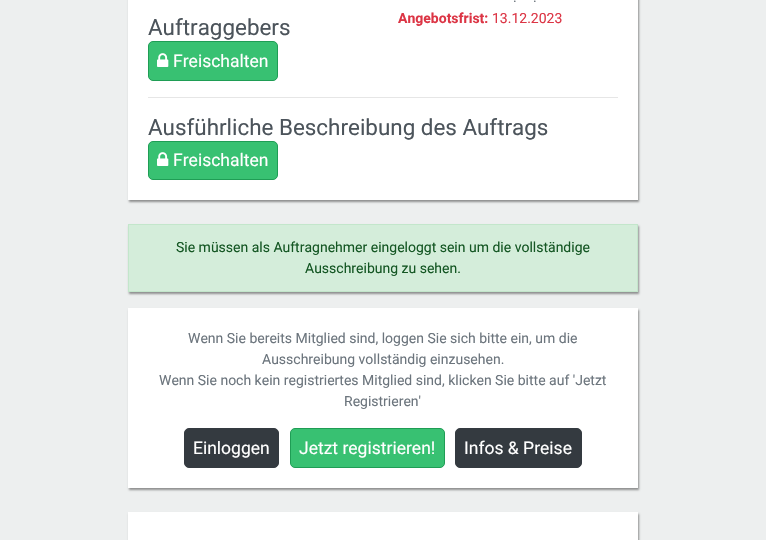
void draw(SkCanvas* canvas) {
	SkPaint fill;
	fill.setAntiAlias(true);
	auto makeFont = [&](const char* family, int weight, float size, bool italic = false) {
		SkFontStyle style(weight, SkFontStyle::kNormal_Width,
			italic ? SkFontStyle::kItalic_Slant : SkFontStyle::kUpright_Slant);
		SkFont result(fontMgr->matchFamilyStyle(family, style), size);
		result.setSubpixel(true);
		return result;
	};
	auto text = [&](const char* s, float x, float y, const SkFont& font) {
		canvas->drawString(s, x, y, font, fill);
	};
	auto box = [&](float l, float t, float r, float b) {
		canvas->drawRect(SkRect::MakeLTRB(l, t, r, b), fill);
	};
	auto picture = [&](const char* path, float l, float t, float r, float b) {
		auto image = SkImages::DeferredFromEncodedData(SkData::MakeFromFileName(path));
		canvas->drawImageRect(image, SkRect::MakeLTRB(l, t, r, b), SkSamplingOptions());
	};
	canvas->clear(0xFFEDEFEF);
	fill.setColor(0x66000000);
	fill.setMaskFilter(SkMaskFilter::MakeBlur(kNormal_SkBlurStyle, 1));
	canvas->drawRect(SkRect::MakeLTRB(129, -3, 639, 202), fill);
	fill.setMaskFilter(nullptr);
	fill.setColor(0xFFFFFFFF);
	box(128, 0, 638, 200);
	fill.setColor(0xFF38C172);
	canvas->drawRoundRect(SkRect::MakeLTRB(148.5f, 41.5f, 277.5f, 80.5f), 4.5f, 4.5f, fill);
	fill.setStyle(SkPaint::kStroke_Style);
	fill.setStrokeWidth(1);
	fill.setColor(0xFF1F9D55);
	canvas->drawRoundRect(SkRect::MakeLTRB(148.5f, 41.5f, 277.5f, 80.5f), 4.5f, 4.5f, fill);
	picture("image0.png", 157, 53, 169, 67);
	fill.setStyle(SkPaint::kFill_Style);
	fill.setColor(0xFFE6E6E6);
	box(148, 97, 618, 98);
	fill.setColor(0xFF38C172);
	canvas->drawRoundRect(SkRect::MakeLTRB(148.5f, 141.5f, 277.5f, 179.5f), 4.5f, 4.5f, fill);
	fill.setStyle(SkPaint::kStroke_Style);
	fill.setColor(0xFF1F9D55);
	canvas->drawRoundRect(SkRect::MakeLTRB(148.5f, 141.5f, 277.5f, 179.5f), 4.5f, 4.5f, fill);
	picture("image0.png", 157, 152, 169, 166);
	fill.setStyle(SkPaint::kFill_Style);
	fill.setColor(0x66000000);
	fill.setMaskFilter(SkMaskFilter::MakeBlur(kNormal_SkBlurStyle, 1));
	canvas->drawRect(SkRect::MakeLTRB(129, 226, 639, 294), fill);
	fill.setMaskFilter(nullptr);
	fill.setColor(0xFFD4EDDA);
	canvas->drawRect(SkRect::MakeLTRB(128.5f, 224.5f, 637.5f, 291.5f), fill);
	fill.setStyle(SkPaint::kStroke_Style);
	fill.setColor(0xFFC3E6CB);
	canvas->drawRect(SkRect::MakeLTRB(128.5f, 224.5f, 637.5f, 291.5f), fill);
	fill.setStyle(SkPaint::kFill_Style);
	fill.setColor(0x66000000);
	fill.setMaskFilter(SkMaskFilter::MakeBlur(kNormal_SkBlurStyle, 1));
	canvas->drawRect(SkRect::MakeLTRB(129, 310, 639, 490), fill);
	fill.setMaskFilter(nullptr);
	fill.setColor(0xFFFFFFFF);
	box(128, 308, 638, 488);
	fill.setColor(0xFF343A40);
	canvas->drawRoundRect(SkRect::MakeLTRB(184.5f, 428.5f, 278.5f, 467.5f), 4.5f, 4.5f, fill);
	fill.setStyle(SkPaint::kStroke_Style);
	canvas->drawRoundRect(SkRect::MakeLTRB(184.5f, 428.5f, 278.5f, 467.5f), 4.5f, 4.5f, fill);
	fill.setStyle(SkPaint::kFill_Style);
	fill.setColor(0xFF38C172);
	canvas->drawRoundRect(SkRect::MakeLTRB(290.5f, 428.5f, 444.5f, 467.5f), 4.5f, 4.5f, fill);
	fill.setStyle(SkPaint::kStroke_Style);
	fill.setColor(0xFF1F9D55);
	canvas->drawRoundRect(SkRect::MakeLTRB(290.5f, 428.5f, 444.5f, 467.5f), 4.5f, 4.5f, fill);
	fill.setStyle(SkPaint::kFill_Style);
	fill.setColor(0xFF343A40);
	canvas->drawRoundRect(SkRect::MakeLTRB(455.5f, 428.5f, 581.5f, 467.5f), 4.5f, 4.5f, fill);
	fill.setStyle(SkPaint::kStroke_Style);
	canvas->drawRoundRect(SkRect::MakeLTRB(455.5f, 428.5f, 581.5f, 467.5f), 4.5f, 4.5f, fill);
	fill.setStyle(SkPaint::kFill_Style);
	fill.setColor(0x66000000);
	fill.setMaskFilter(SkMaskFilter::MakeBlur(kNormal_SkBlurStyle, 1));
	canvas->drawRect(SkRect::MakeLTRB(129, 514, 639, 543), fill);
	fill.setMaskFilter(nullptr);
	fill.setColor(0xFFFFFFFF);
	box(128, 512, 638, 540);
	auto font1 = makeFont("Roboto", 400, 14);
	fill.setColor(0xFF6C757D);
	text(".", 513, 2, font1);
	text(".", 533, 2, font1);
	auto font2 = makeFont("Roboto", 700, 14);
	fill.setColor(0xFFDC3545);
	text("Angebotsfrist:", 398, 23, font2);
	text("13.12.2023", 492, 23, font1);
	auto font3 = makeFont("Roboto", 400, 22.4f);
	fill.setColor(0xFF4C545B);
	text("Auftraggebers", 148, 35, font3);
	auto font4 = makeFont("Roboto", 400, 17.5f);
	fill.setColor(0xFFFFFFFF);
	text("Freischalten", 173, 67, font4);
	fill.setColor(0xFF4C545B);
	text("Ausführliche Beschreibung des Auftrags", 148, 135, font3);
	fill.setColor(0xFFFFFFFF);
	text("Freischalten", 173, 166, font4);
	fill.setColor(0xFF155724);
	text("Sie müssen als Auftragnehmer eingeloggt sein um die vollständige", 176, 252, font1);
	text("Ausschreibung zu sehen.", 305, 273, font1);
	fill.setColor(0xFF6C757D);
	text("Wenn Sie bereits Mitglied sind, loggen Sie sich bitte ein, um die", 188, 343, font1);
	text("Ausschreibung vollständig einzusehen.", 262, 364, font1);
	text("Wenn Sie noch kein registriertes Mitglied sind, klicken Sie bitte auf 'Jetzt", 159, 385, font1);
	text("Registrieren'", 344, 406, font1);
	fill.setColor(0xFFFFFFFF);
	text("Einloggen", 193, 454, font4);
	text("Jetzt registrieren!", 299, 454, font4);
	text("Infos & Preise", 464, 454, font4);
}
